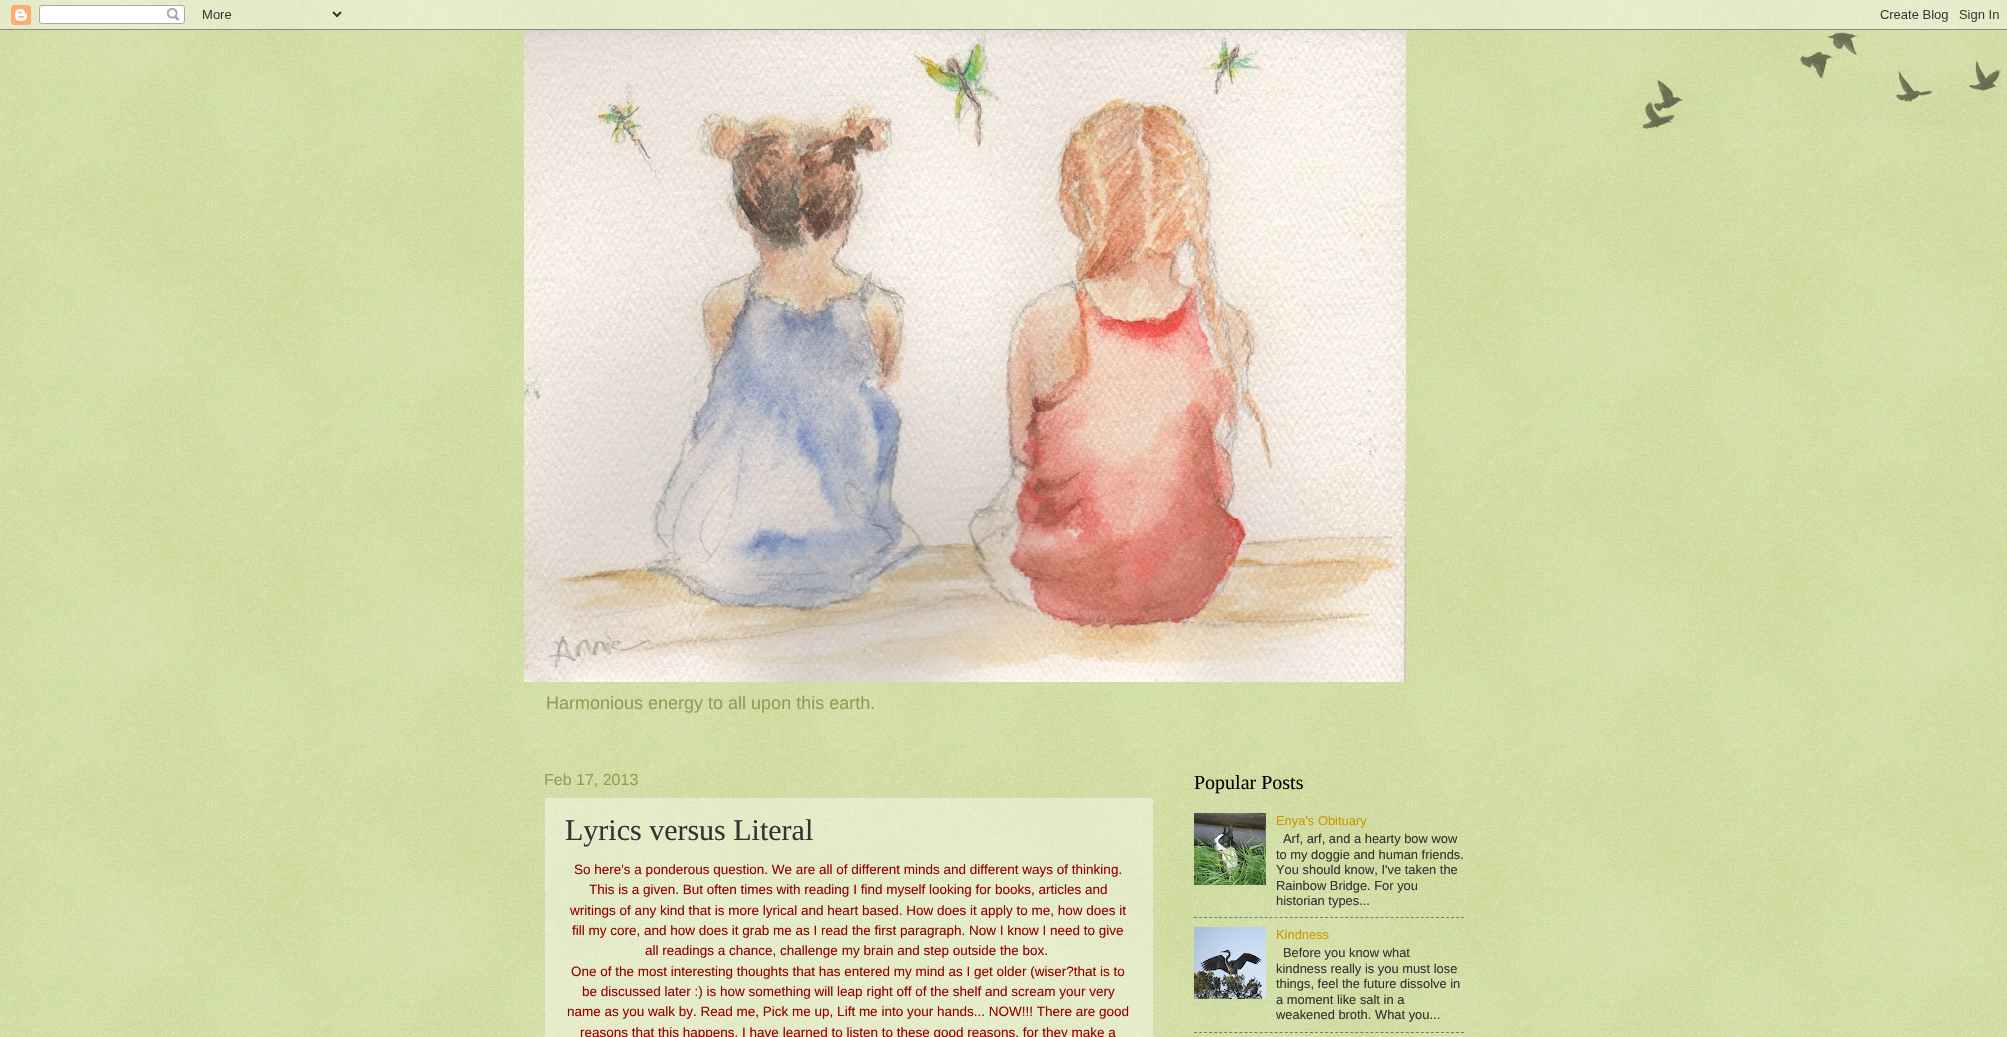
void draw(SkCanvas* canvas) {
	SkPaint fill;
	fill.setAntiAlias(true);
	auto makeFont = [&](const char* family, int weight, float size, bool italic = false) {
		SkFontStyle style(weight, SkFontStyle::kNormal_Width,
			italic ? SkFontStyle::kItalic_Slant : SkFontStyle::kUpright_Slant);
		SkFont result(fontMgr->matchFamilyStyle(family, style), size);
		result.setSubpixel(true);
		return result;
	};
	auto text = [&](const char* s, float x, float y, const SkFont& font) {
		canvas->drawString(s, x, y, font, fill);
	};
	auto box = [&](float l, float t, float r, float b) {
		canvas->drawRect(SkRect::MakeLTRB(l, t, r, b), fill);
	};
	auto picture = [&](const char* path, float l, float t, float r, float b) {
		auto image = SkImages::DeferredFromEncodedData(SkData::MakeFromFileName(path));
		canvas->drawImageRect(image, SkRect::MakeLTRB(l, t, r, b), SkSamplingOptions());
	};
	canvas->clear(0xFFA9C054);
	picture("image0.png", 0, 0, 2007, 1037);
	picture("image1.png", 0, 0, 2007, 30);
	picture("image2.png", 1642, 32, 2001, 129);
	picture("image3.png", 524, 30, 1406, 682);
	fill.setColor(0x66FFFFFF);
	box(544, 797, 1154, 1037);
	fill.setStyle(SkPaint::kStroke_Style);
	fill.setStrokeWidth(1);
	fill.setColor(0xFFC3CC99);
	fill.setPathEffect(SkDashPathEffect::Make({{1, 1}}, 0));
	canvas->drawPath(SkPathBuilder().moveTo(544, 797.5f).lineTo(1154, 797.5f).detach(), fill);
	fill.setPathEffect(nullptr);
	fill.setPathEffect(SkDashPathEffect::Make({{1, 1}}, 0));
	canvas->drawPath(SkPathBuilder().moveTo(1153.5f, 797).lineTo(1153.5f, 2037).detach(), fill);
	fill.setPathEffect(nullptr);
	fill.setPathEffect(SkDashPathEffect::Make({{1, 1}}, 0));
	canvas->drawPath(SkPathBuilder().moveTo(544.5f, 797).lineTo(544.5f, 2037).detach(), fill);
	fill.setPathEffect(nullptr);
	picture("image4.png", 1194, 813, 1266, 885);
	fill.setColor(0xFF777777);
	fill.setPathEffect(SkDashPathEffect::Make({{3, 2.04f}}, 0));
	canvas->drawPath(SkPathBuilder().moveTo(1194, 917.5f).lineTo(1464, 917.5f).detach(), fill);
	fill.setPathEffect(nullptr);
	picture("image5.png", 1194, 927, 1266, 999);
	fill.setPathEffect(SkDashPathEffect::Make({{3, 2.04f}}, 0));
	canvas->drawPath(SkPathBuilder().moveTo(1194, 1032.5f).lineTo(1464, 1032.5f).detach(), fill);
	fill.setPathEffect(nullptr);
	auto font1 = makeFont("Liberation Sans", 400, 18);
	fill.setStyle(SkPaint::kFill_Style);
	fill.setColor(0xFF999955);
	text("Harmonious energy to all upon this earth.", 546, 709, font1);
	auto font2 = makeFont("Liberation Sans", 400, 16);
	text("Feb 17, 2013", 544, 785, font2);
	auto font3 = makeFont("Liberation Serif", 400, 30);
	fill.setColor(0xFF333333);
	text("Lyrics versus Literal", 565, 840, font3);
	auto font4 = makeFont("Liberation Sans", 400, 13.5f);
	fill.setColor(0xFF990000);
	text("So here's a ponderous question. We are all of different minds and different ways of thinking.", 574, 874, font4);
	text("This is a given. But often times with reading I find myself looking for books, articles and", 589, 894, font4);
	text("writings of any kind that is more lyrical and heart based. How does it apply to me, how does it", 570, 915, font4);
	text("fill my core, and how does it grab me as I read the first paragraph. Now I know I need to give", 572, 935, font4);
	text("all readings a chance, challenge my brain and step outside the box.", 645, 955, font4);
	text("One of the most interesting thoughts that has entered my mind as I get older (wiser?that is to", 571, 976, font4);
	text("be discussed later :) is how something will leap right off of the shelf and scream your very", 582, 996, font4);
	text("name as you walk by. Read me, Pick me up, Lift me into your hands... NOW!!! There are good", 567, 1016, font4);
	text("reasons that this happens. I have learned to listen to these good reasons, for they make a", 580, 1037, font4);
	auto font5 = makeFont("Liberation Serif", 400, 20);
	fill.setColor(0xFF000000);
	text("Popular Posts", 1194, 789, font5);
	auto font6 = makeFont("Liberation Sans", 400, 12.9f);
	fill.setColor(0xFFCC9900);
	text("Enya's Obituary", 1276, 825, font6);
	fill.setColor(0xFF333333);
	text("Arf, arf, and a hearty bow wow", 1283, 843, font6);
	text("to my doggie and human friends.", 1276, 859, font6);
	text("You should know, I've taken the", 1276, 874, font6);
	text("Rainbow Bridge. For you", 1276, 890, font6);
	text("historian types...", 1276, 905, font6);
	fill.setColor(0xFFCC9900);
	text("Kindness", 1276, 939, font6);
	fill.setColor(0xFF333333);
	text("Before you know what", 1283, 957, font6);
	text("kindness really is you must lose", 1276, 973, font6);
	text("things, feel the future dissolve in", 1276, 988, font6);
	text("a moment like salt in a", 1276, 1004, font6);
	text("weakened broth. What you...", 1276, 1019, font6);
}
